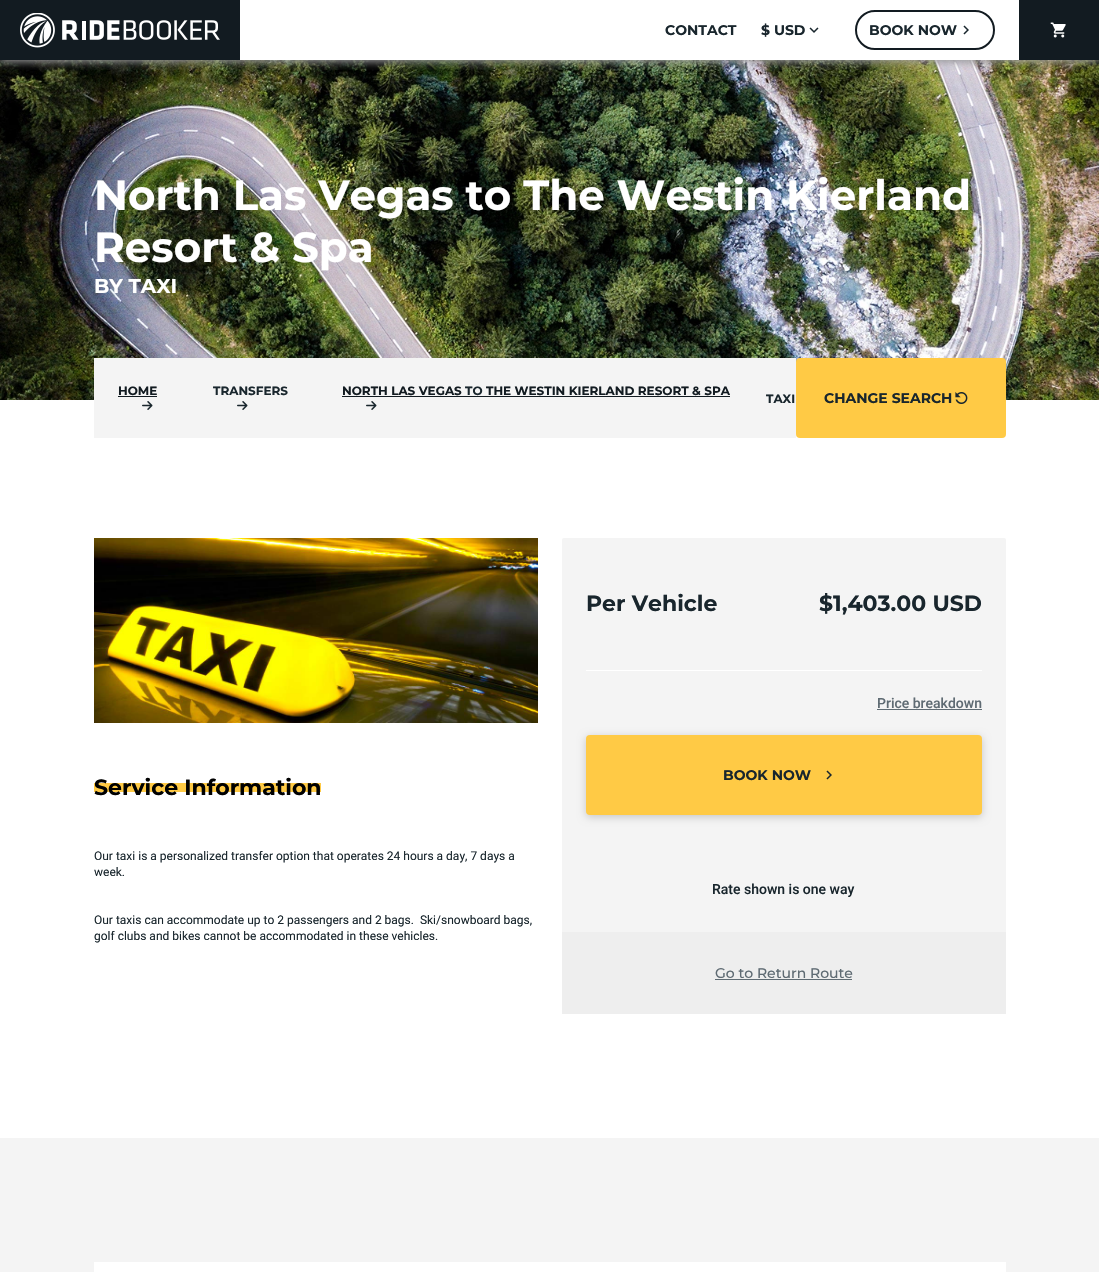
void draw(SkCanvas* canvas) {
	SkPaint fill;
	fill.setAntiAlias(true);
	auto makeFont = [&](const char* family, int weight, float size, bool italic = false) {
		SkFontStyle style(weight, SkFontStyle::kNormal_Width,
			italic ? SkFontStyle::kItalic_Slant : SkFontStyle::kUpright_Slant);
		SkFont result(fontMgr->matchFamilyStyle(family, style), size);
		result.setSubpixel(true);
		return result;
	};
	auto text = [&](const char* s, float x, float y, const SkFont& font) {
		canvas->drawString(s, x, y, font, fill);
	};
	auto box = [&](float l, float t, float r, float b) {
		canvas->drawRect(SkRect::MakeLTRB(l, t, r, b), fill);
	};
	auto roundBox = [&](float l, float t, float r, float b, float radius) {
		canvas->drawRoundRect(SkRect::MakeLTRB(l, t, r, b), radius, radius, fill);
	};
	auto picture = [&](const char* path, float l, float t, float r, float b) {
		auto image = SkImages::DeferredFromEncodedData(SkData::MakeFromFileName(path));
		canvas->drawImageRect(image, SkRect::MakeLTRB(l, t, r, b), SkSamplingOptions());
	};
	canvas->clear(0xFFFFFFFF);
	picture("image4.png", 0, 60, 1099, 400);
	canvas->save();
	canvas->clipRect(SkRect::MakeLTRB(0, 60, 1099, 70));
	fill.setColor(0xFF999999);
	fill.setMaskFilter(SkMaskFilter::MakeBlur(kNormal_SkBlurStyle, 4));
	canvas->drawRect(SkRect::MakeLTRB(0, 2, 1099, 62), fill);
	fill.setMaskFilter(nullptr);
	canvas->restore();
	fill.setColor(0xFF121B21);
	box(0, 0, 240, 60);
	picture("image0.png", 20, 13, 220, 48);
	picture("image1.png", 809, 27, 819, 33);
	fill.setStyle(SkPaint::kStroke_Style);
	fill.setStrokeWidth(2);
	canvas->drawRoundRect(SkRect::MakeLTRB(856, 11, 994, 49), 19, 19, fill);
	picture("image2.png", 963, 25, 969, 35);
	fill.setStyle(SkPaint::kFill_Style);
	box(1019, 0, 1099, 60);
	picture("image3.png", 1050, 22, 1066, 38);
	fill.setColor(0xFFF4F4F4);
	box(94, 358, 796, 438);
	fill.setColor(0xFF121B21);
	box(118, 396, 157, 397);
	picture("image5.png", 142, 401, 153, 410);
	picture("image5.png", 237, 401, 248, 410);
	box(342, 396, 730, 397);
	picture("image5.png", 366, 401, 377, 410);
	fill.setColor(0xFFFFCA45);
	roundBox(796, 358, 1006, 438, 4);
	picture("image6.png", 955, 392, 968, 404);
	picture("image7.png", 94, 538, 538, 723);
	box(94, 783, 321, 792);
	fill.setColor(0xFFF4F4F4);
	roundBox(562, 538, 1006, 1014, 2);
	fill.setColor(0xFFFFFFFF);
	box(586, 670, 982, 671);
	fill.setColor(0xFF5F6B73);
	box(877, 709, 982, 710);
	fill.setColor(0xFFC6C6C6);
	fill.setMaskFilter(SkMaskFilter::MakeBlur(kNormal_SkBlurStyle, 4));
	canvas->drawRoundRect(SkRect::MakeLTRB(586, 737, 982, 817), 4, 4, fill);
	fill.setMaskFilter(nullptr);
	fill.setColor(0xFFFFCA45);
	roundBox(586, 735, 982, 815, 4);
	picture("image8.png", 826, 770, 832, 780);
	fill.setColor(0xFFEEEEEE);
	box(562, 932, 1006, 1014);
	fill.setColor(0xFF5F6B73);
	box(715, 979, 852, 980);
	fill.setColor(0xFFF4F4F4);
	box(0, 1138, 1099, 1272);
	fill.setColor(0xFFFFFFFF);
	box(94, 1262, 1006, 1272);
	auto font1 = makeFont("Montserrat", 700, 14);
	fill.setColor(0xFF19262D);
	text("CONTACT", 665, 35, font1);
	text("$ USD", 761, 35, font1);
	text("BOOK NOW", 869, 35, font1);
	auto font2 = makeFont("Montserrat", 700, 42);
	fill.setColor(0xFFFFFFFF);
	text("North Las Vegas to The Westin Kierland", 94, 210, font2);
	text("Resort & Spa", 94, 262, font2);
	auto font3 = makeFont("Montserrat", 700, 20);
	text("BY TAXI", 94, 293, font3);
	auto font4 = makeFont("Montserrat", 700, 12);
	fill.setColor(0xFF121B21);
	text("HOME", 118, 395, font4);
	fill.setColor(0xFF19262D);
	text("TRANSFERS", 213, 395, font4);
	fill.setColor(0xFF121B21);
	text("NORTH LAS VEGAS", 342, 395, font4);
	fill.setColor(0xFF19262D);
	text("TO", 465, 395, font4);
	fill.setColor(0xFF121B21);
	text("THE WESTIN KIERLAND RESORT & SPA", 486, 395, font4);
	fill.setColor(0xFF19262D);
	text("TAXI", 766, 403, font4);
	text("CHANGE SEARCH", 824, 403, font1);
	auto font5 = makeFont("Montserrat", 700, 22);
	fill.setColor(0xFF000000);
	text("Service Information", 94, 795, font5);
	auto font6 = makeFont("Roboto", 400, 12);
	fill.setColor(0xFF19262D);
	text("Our taxi is a personalized transfer option that operates 24 hours a day, 7 days a", 94, 860, font6);
	text("week.", 94, 876, font6);
	text("Our taxis can accommodate up to 2 passengers and 2 bags.  Ski/snowboard bags,", 94, 924, font6);
	text("golf clubs and bikes cannot be accommodated in these vehicles.", 94, 940, font6);
	text("Per Vehicle", 586, 611, font5);
	text("$1,403.00 USD", 819, 611, font5);
	auto font7 = makeFont("Roboto", 500, 14);
	fill.setColor(0xFF5F6B73);
	text("Price breakdown", 877, 708, font7);
	fill.setColor(0xFF19262D);
	text("BOOK NOW", 723, 780, font1);
	text("Rate shown is one way", 712, 894, font7);
	auto font8 = makeFont("Montserrat", 500, 14);
	fill.setColor(0xFF5F6B73);
	text("Go to Return Route", 715, 978, font8);
}
